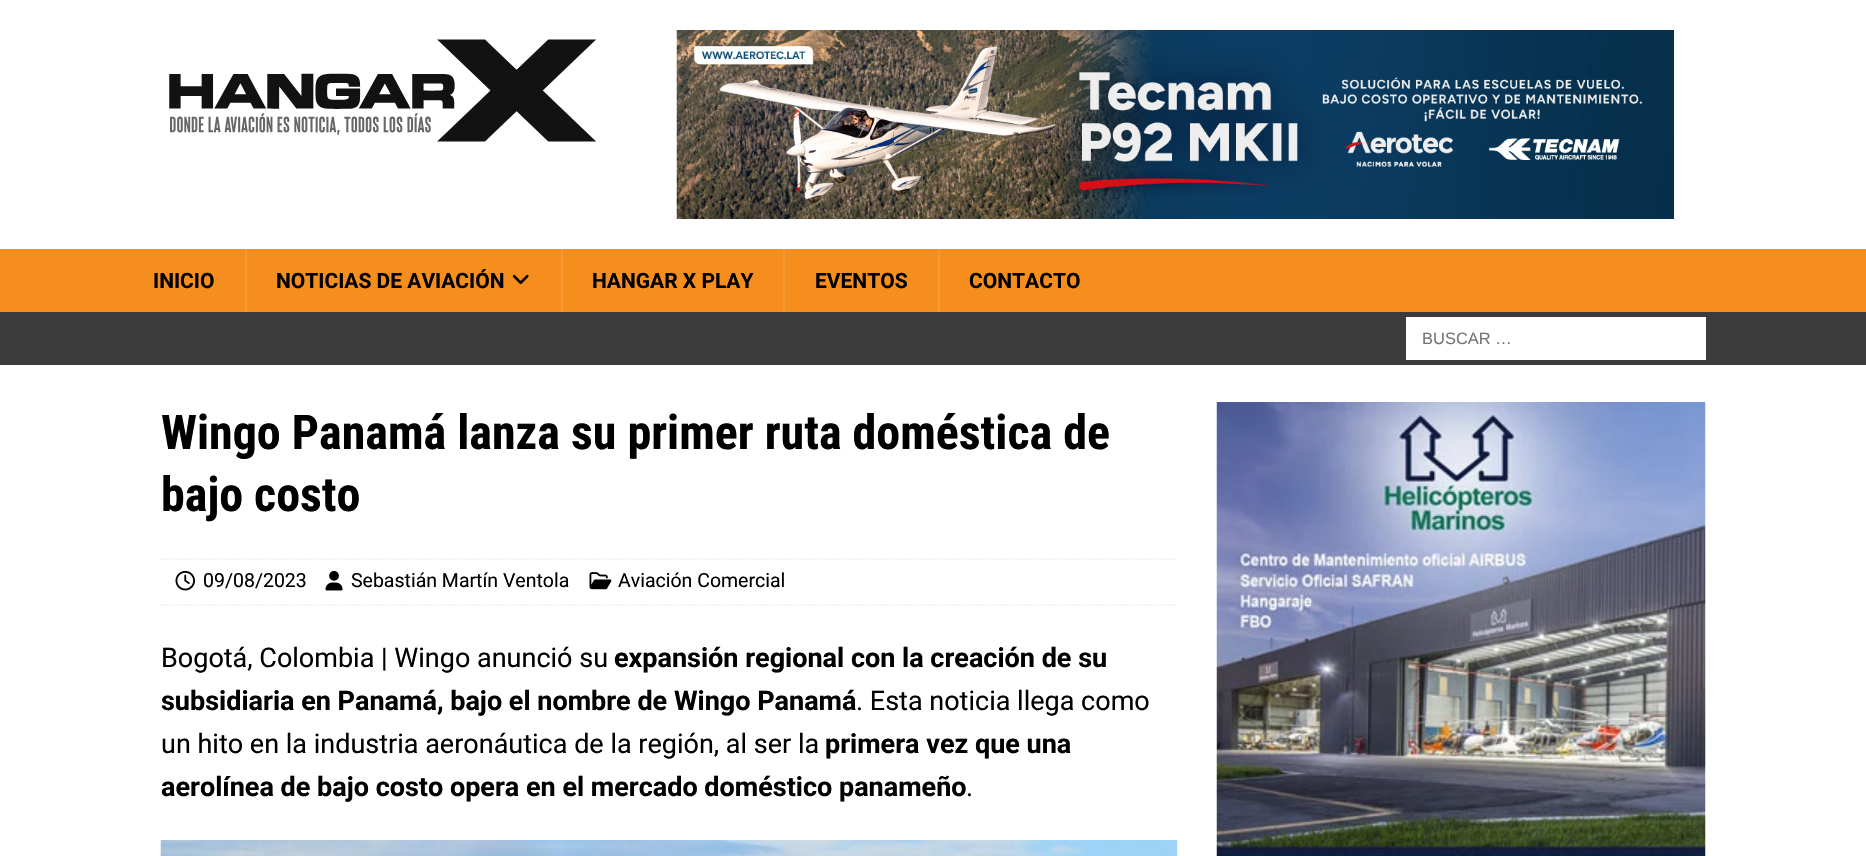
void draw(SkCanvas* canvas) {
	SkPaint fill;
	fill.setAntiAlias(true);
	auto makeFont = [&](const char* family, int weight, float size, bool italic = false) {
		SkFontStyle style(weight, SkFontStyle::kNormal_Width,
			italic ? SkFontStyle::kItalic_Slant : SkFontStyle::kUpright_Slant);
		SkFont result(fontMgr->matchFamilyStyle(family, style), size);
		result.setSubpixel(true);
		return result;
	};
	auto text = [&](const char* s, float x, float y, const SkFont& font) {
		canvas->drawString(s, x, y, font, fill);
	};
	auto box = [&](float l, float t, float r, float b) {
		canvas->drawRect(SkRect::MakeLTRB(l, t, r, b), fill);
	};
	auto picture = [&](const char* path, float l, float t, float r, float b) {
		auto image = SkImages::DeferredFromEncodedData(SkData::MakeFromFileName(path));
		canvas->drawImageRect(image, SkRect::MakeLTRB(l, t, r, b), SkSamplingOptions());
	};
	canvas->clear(0xFFFFFFFF);
	picture("image0.png", 169, 39, 596, 142);
	picture("image1.png", 676, 30, 1674, 219);
	fill.setColor(0xFFF68E1E);
	box(0, 249, 1866, 312);
	fill.setColor(0xFFF79935);
	box(245, 249, 247, 312);
	picture("image2.png", 512, 274, 529, 284);
	box(561, 249, 563, 312);
	box(783, 249, 785, 312);
	box(938, 249, 940, 312);
	fill.setColor(0xFF3B3B3B);
	box(0, 312, 1866, 365);
	fill.setColor(0xFFFFFFFF);
	box(1406, 317, 1706, 360);
	fill.setStyle(SkPaint::kStroke_Style);
	fill.setStrokeWidth(1.5f);
	fill.setColor(0xFFEBEBEB);
	fill.setPathEffect(SkDashPathEffect::Make({{1.5f, 1.5f}}, 0));
	canvas->drawPath(SkPathBuilder().moveTo(160.5f, 559).lineTo(1177.5f, 559).detach(), fill);
	fill.setPathEffect(nullptr);
	fill.setPathEffect(SkDashPathEffect::Make({{1.5f, 1.5f}}, 0));
	canvas->drawPath(SkPathBuilder().moveTo(160.5f, 605).lineTo(1177.5f, 605).detach(), fill);
	fill.setPathEffect(nullptr);
	picture("image3.png", 175, 570, 195, 591);
	picture("image4.png", 325, 571, 343, 591);
	picture("image5.png", 589, 572, 612, 590);
	picture("image6.png", 160, 840, 1178, 856);
	picture("image7.png", 1216, 402, 1706, 856);
	auto font1 = makeFont("Roboto", 700, 21);
	fill.setStyle(SkPaint::kFill_Style);
	fill.setColor(0xFF000000);
	text("INICIO", 153, 288, font1);
	text("NOTICIAS DE AVIACIÓN", 276, 288, font1);
	text("HANGAR X PLAY", 592, 288, font1);
	text("EVENTOS", 815, 288, font1);
	text("CONTACTO", 969, 288, font1);
	auto font2 = makeFont("Liberation Sans", 400, 16.5f);
	fill.setColor(0xFF757575);
	text("BUSCAR …", 1422, 344, font2);
	auto font3 = makeFont("Roboto Condensed", 700, 48);
	fill.setColor(0xFF000000);
	text("Wingo Panamá lanza su primer ruta doméstica de", 161, 449, font3);
	text("bajo costo", 161, 511, font3);
	auto font4 = makeFont("Roboto", 400, 19.5f);
	text("09/08/2023", 203, 587, font4);
	text("Sebastián Martín Ventola", 351, 587, font4);
	text("Aviación Comercial", 618, 587, font4);
	auto font5 = makeFont("Roboto", 400, 27);
	text("Bogotá, Colombia | Wingo anunció su", 161, 667, font5);
	auto font6 = makeFont("Roboto", 700, 27);
	text("expansión regional con la creación de su", 614, 667, font6);
	text("subsidiaria en Panamá, bajo el nombre de Wingo Panamá", 161, 710, font6);
	text(". Esta noticia llega como", 856, 710, font5);
	text("un hito en la industria aeronáutica de la región, al ser la", 161, 753, font5);
	text("primera vez que una", 825, 753, font6);
	text("aerolínea de bajo costo opera en el mercado doméstico panameño", 161, 796, font6);
	text(".", 966, 796, font5);
}
